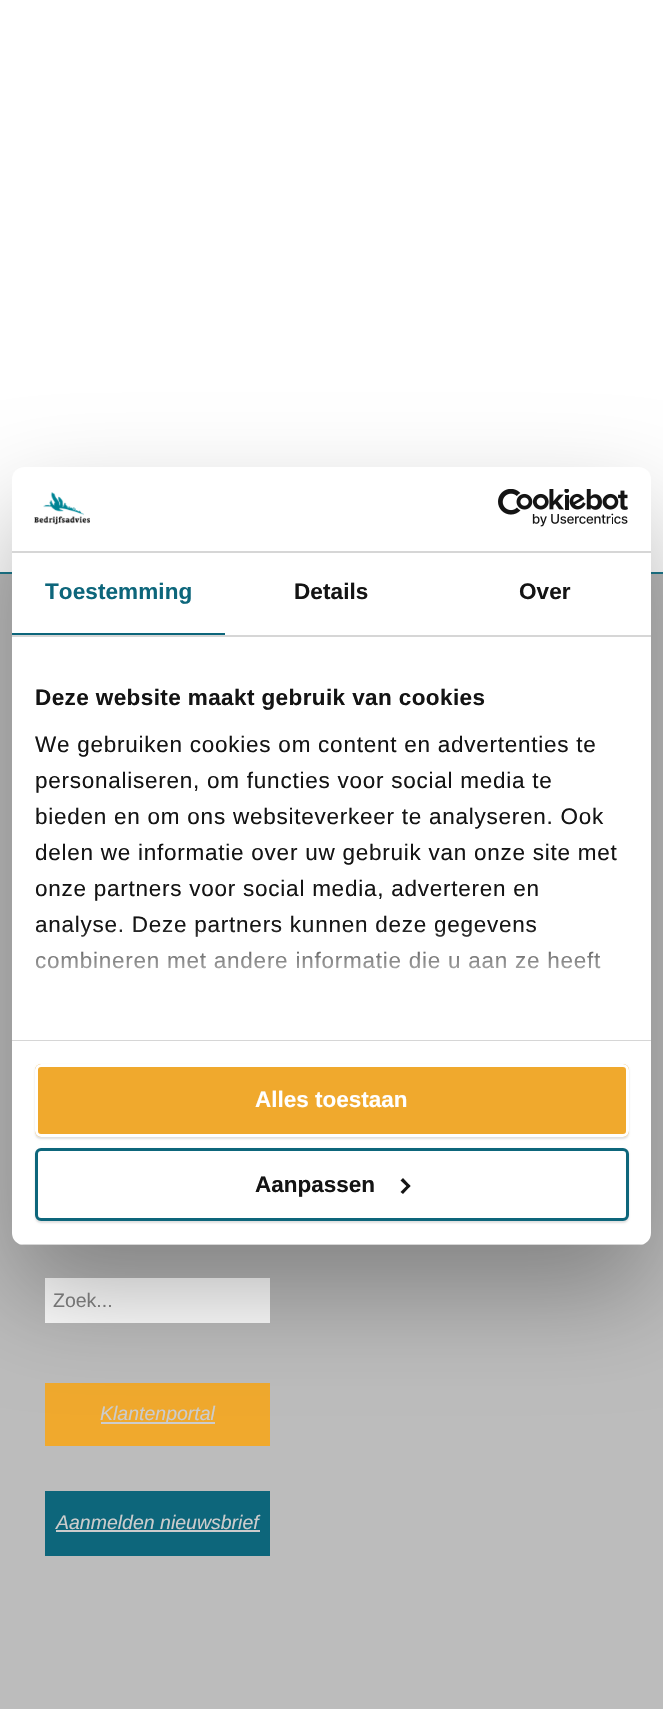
void draw(SkCanvas* canvas) {
	SkPaint fill;
	fill.setAntiAlias(true);
	auto makeFont = [&](const char* family, int weight, float size, bool italic = false) {
		SkFontStyle style(weight, SkFontStyle::kNormal_Width,
			italic ? SkFontStyle::kItalic_Slant : SkFontStyle::kUpright_Slant);
		SkFont result(fontMgr->matchFamilyStyle(family, style), size);
		result.setSubpixel(true);
		return result;
	};
	auto text = [&](const char* s, float x, float y, const SkFont& font) {
		canvas->drawString(s, x, y, font, fill);
	};
	auto spacedText = [&](const char* s, float x, float y, const SkFont& font, const SkPaint& ink, float letter, float word) {
		std::vector<SkGlyphID> glyphs(font.countText(s, strlen(s), SkTextEncoding::kUTF8));
		std::vector<float> xs(glyphs.size());
		font.textToGlyphs(s, strlen(s), SkTextEncoding::kUTF8, glyphs);
		font.getXPos(glyphs, xs, x);
		float extra = 0;
		for (size_t i = 0; i < glyphs.size(); i++) {
			xs[i] += extra;
			extra += letter + word * (glyphs[i] == font.unicharToGlyph(' '));
		}
		canvas->drawTextBlob(SkTextBlob::MakeFromPosHGlyphs(glyphs, xs, y, font), 0, 0, ink);
	};
	auto box = [&](float l, float t, float r, float b) {
		canvas->drawRect(SkRect::MakeLTRB(l, t, r, b), fill);
	};
	auto roundBox = [&](float l, float t, float r, float b, float radius) {
		canvas->drawRoundRect(SkRect::MakeLTRB(l, t, r, b), radius, radius, fill);
	};
	auto picture = [&](const char* path, float l, float t, float r, float b) {
		auto image = SkImages::DeferredFromEncodedData(SkData::MakeFromFileName(path));
		canvas->drawImageRect(image, SkRect::MakeLTRB(l, t, r, b), SkSamplingOptions());
	};
	canvas->clear(0xFFFFFFFF);
	fill.setColor(0xFFBCBCBC);
	box(0, 574, 663, 1709);
	fill.setColor(0xFF1C798D);
	box(0, 572, 663, 574);
	fill.setColor(0xFFFFFFFF);
	box(45, 1278, 270, 1323);
	fill.setColor(0xFFF0A92D);
	box(45, 1383, 270, 1446);
	fill.setColor(0xFFCCCCCC);
	box(101, 1422, 215, 1424);
	fill.setColor(0x4D000000);
	fill.setMaskFilter(SkMaskFilter::MakeBlur(kNormal_SkBlurStyle, 51));
	canvas->drawRoundRect(SkRect::MakeLTRB(12, 515, 651, 1293), 12, 12, fill);
	fill.setMaskFilter(nullptr);
	fill.setColor(0xFFFFFFFF);
	roundBox(12, 467, 651, 1245, 12);
	fill.setColor(0xFFD6D6D6);
	box(12, 551, 651, 553);
	picture("image0.png", 34, 492, 90, 525);
	picture("image1.png", 498, 489, 628, 527);
	box(12, 635, 651, 637);
	fill.setColor(0xFF0D667B);
	box(12, 633, 225, 635);
	fill.setColor(0xFFD6D6D6);
	box(12, 1040, 651, 1041);
	canvas->save();
	canvas->clipPath(SkPathBuilder().moveTo(24, 467).lineTo(639, 467).cubicTo(645.5f, 467, 651, 472.5f, 651, 479).lineTo(651, 1233).cubicTo(651, 1239.5f, 645.5f, 1245, 639, 1245).lineTo(24, 1245).cubicTo(17.5f, 1245, 12, 1239.5f, 12, 1233).lineTo(12, 479).cubicTo(12, 472.5f, 17.5f, 467, 24, 467).close().detach(), true);
	box(12, 1244, 651, 1245);
	canvas->restore();
	fill.setColor(0x1F000000);
	fill.setMaskFilter(SkMaskFilter::MakeBlur(kNormal_SkBlurStyle, 1));
	canvas->drawRoundRect(SkRect::MakeLTRB(35, 1065, 629, 1139), 6, 6, fill);
	fill.setMaskFilter(nullptr);
	fill.setColor(0xFFF0A92D);
	roundBox(35, 1064, 629, 1137, 6);
	fill.setColor(0xFFF8D496);
	canvas->drawPath(SkPathBuilder().moveTo(623, 1067).cubicTo(624, 1067, 626, 1068, 626, 1070).cubicTo(626, 1068.5f, 624.5f, 1067, 623, 1067).close().detach(), fill);
	fill.setStyle(SkPaint::kStroke_Style);
	fill.setStrokeWidth(3);
	fill.setColor(0xFFFFFFFF);
	canvas->drawRoundRect(SkRect::MakeLTRB(36.5f, 1065.5f, 627.5f, 1135.5f), 4.5f, 4.5f, fill);
	fill.setStyle(SkPaint::kFill_Style);
	fill.setColor(0x1F000000);
	fill.setMaskFilter(SkMaskFilter::MakeBlur(kNormal_SkBlurStyle, 1));
	canvas->drawRoundRect(SkRect::MakeLTRB(35, 1149, 629, 1223), 6, 6, fill);
	fill.setMaskFilter(nullptr);
	fill.setColor(0xFFFFFFFF);
	canvas->drawRoundRect(SkRect::MakeLTRB(36.5f, 1149.5f, 627.5f, 1219.5f), 4.5f, 4.5f, fill);
	fill.setStyle(SkPaint::kStroke_Style);
	fill.setColor(0xFF0D667B);
	canvas->drawRoundRect(SkRect::MakeLTRB(36.5f, 1149.5f, 627.5f, 1219.5f), 4.5f, 4.5f, fill);
	fill.setStyle(SkPaint::kFill_Style);
	fill.setColor(0xFF141414);
	canvas->drawPath(SkPathBuilder().moveTo(403, 1178).lineTo(410.5f, 1186).lineTo(408.5f, 1188).lineTo(400.5f, 1180.5f).close().detach(), fill);
	canvas->drawPath(SkPathBuilder().moveTo(408.5f, 1184).lineTo(410.5f, 1186).lineTo(403, 1194).lineTo(400.5f, 1192).close().detach(), fill);
	fill.setColor(0xFF0D667B);
	box(45, 1491, 270, 1556);
	fill.setColor(0xFFCCCCCC);
	box(56, 1530, 260, 1532);
	auto font1 = makeFont("Liberation Sans", 700, 22.5f);
	fill.setColor(0xFF0D667B);
	spacedText("Toestemming", 45, 599, font1, fill, 0.1f, 0);
	fill.setColor(0xFF141414);
	spacedText("Details", 294, 599, font1, fill, 0.1f, 0);
	spacedText("Over", 519, 599, font1, fill, 0.1f, 0);
	spacedText("Deze website maakt gebruik van cookies", 35, 705, font1, fill, 0.4f, 0);
	auto font2 = makeFont("Liberation Sans", 400, 22.5f);
	spacedText("We gebruiken cookies om content en advertenties te", 35, 752, font2, fill, 0.75f, 0);
	spacedText("personaliseren, om functies voor social media te", 35, 788, font2, fill, 0.75f, 0);
	spacedText("bieden en om ons websiteverkeer te analyseren. Ook", 35, 824, font2, fill, 0.75f, 0);
	spacedText("delen we informatie over uw gebruik van onze site met", 35, 860, font2, fill, 0.75f, 0);
	spacedText("onze partners voor social media, adverteren en", 35, 896, font2, fill, 0.75f, 0);
	spacedText("analyse. Deze partners kunnen deze gegevens", 35, 932, font2, fill, 0.75f, 0);
	spacedText("combineren met andere informatie die u aan ze heeft", 35, 968, font2, fill, 0.75f, 0);
	{
		const SkColor colors[] = {0xFFFFFFFF, 0xCCFFFFFF, 0x00FFFFFF};
		const float stops[] = {0, 0.5f, 1};
		const SkPoint ends[] = {{322, 1039}, {322, 926}};
		fill.setShader(SkGradientShader::MakeLinear(ends, colors, stops, 3, SkTileMode::kClamp));
		fill.setAlpha(255);
	}
	box(35, 928, 600, 969);
	fill.setShader(nullptr);
	fill.setColor(0xFFFFFFFF);
	text("Alles toestaan", 255, 1107, font1);
	fill.setColor(0xFF141414);
	text("Aanpassen", 255, 1192, font1);
	auto font3 = makeFont("Liberation Sans", 400, 19.5f);
	fill.setColor(0xFF757575);
	text("Zoek...", 53, 1307, font3);
	auto font4 = makeFont("Liberation Sans", 400, 19.5f, true);
	fill.setColor(0xFFCCCCCC);
	text("Klantenportal", 100, 1420, font4);
	text("Aanmelden nieuwsbrief", 56, 1529, font4);
}
